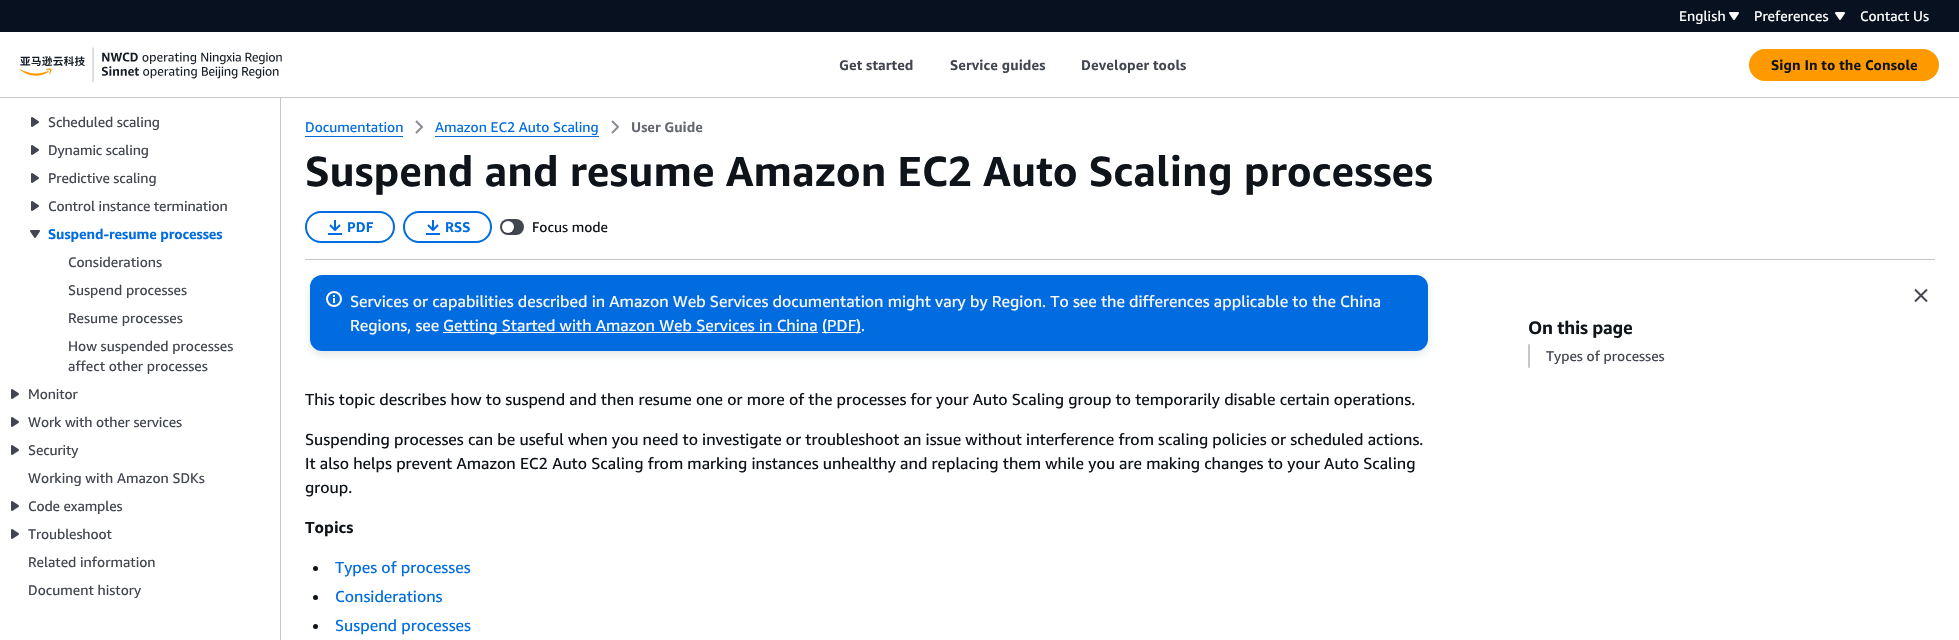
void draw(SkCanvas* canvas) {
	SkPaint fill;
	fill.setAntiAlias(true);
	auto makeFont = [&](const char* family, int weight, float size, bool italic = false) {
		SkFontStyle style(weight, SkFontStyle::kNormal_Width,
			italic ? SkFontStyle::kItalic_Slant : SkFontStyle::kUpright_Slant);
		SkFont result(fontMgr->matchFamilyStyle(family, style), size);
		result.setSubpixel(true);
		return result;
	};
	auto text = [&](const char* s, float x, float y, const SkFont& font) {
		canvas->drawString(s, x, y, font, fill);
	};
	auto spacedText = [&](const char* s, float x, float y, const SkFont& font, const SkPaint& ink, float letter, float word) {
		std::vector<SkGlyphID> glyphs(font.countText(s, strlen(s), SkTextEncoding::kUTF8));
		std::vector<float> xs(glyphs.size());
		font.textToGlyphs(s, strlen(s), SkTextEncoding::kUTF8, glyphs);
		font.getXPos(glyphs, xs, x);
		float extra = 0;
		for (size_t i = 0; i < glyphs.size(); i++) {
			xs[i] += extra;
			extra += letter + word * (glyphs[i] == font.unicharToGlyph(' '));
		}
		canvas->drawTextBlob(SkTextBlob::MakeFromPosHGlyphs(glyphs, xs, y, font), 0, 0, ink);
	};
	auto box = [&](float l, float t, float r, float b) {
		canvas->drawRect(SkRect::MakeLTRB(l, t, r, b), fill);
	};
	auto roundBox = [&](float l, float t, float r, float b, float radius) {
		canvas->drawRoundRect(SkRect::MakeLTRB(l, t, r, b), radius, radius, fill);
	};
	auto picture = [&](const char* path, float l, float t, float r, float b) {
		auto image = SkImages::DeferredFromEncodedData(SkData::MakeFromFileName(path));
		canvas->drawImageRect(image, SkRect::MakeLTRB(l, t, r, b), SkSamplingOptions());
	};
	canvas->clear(0xFFFFFFFF);
	fill.setColor(0xFFC6C6CD);
	box(0, 97, 1959, 98);
	fill.setColor(0xFF081120);
	box(0, 0, 1959, 32);
	picture("image0.png", 1729, 12, 1739, 20);
	picture("image0.png", 1835, 12, 1845, 20);
	picture("image1.png", 20, 47, 282, 83);
	fill.setColor(0xFFFF9900);
	canvas->drawRoundRect(SkRect::MakeLTRB(1750, 50, 1938, 80), 15, 15, fill);
	fill.setStyle(SkPaint::kStroke_Style);
	fill.setStrokeWidth(2);
	canvas->drawRoundRect(SkRect::MakeLTRB(1750, 50, 1938, 80), 15, 15, fill);
	fill.setStyle(SkPaint::kFill_Style);
	fill.setColor(0xFFC6C6CD);
	box(280, 98, 281, 640);
	picture("image2.png", 31, 117, 39, 127);
	picture("image2.png", 31, 145, 39, 155);
	picture("image2.png", 31, 173, 39, 183);
	picture("image2.png", 31, 201, 39, 211);
	picture("image3.png", 30, 230, 40, 238);
	picture("image2.png", 11, 389, 19, 399);
	picture("image2.png", 11, 417, 19, 427);
	picture("image2.png", 11, 445, 19, 455);
	picture("image2.png", 11, 501, 19, 511);
	picture("image2.png", 11, 529, 19, 539);
	fill.setColor(0xFF006CE0);
	box(305, 136, 403, 137);
	fill.setStyle(SkPaint::kStroke_Style);
	fill.setStrokeJoin(SkPaint::kRound_Join);
	fill.setColor(0xFF8C8C94);
	canvas->drawPath(SkPathBuilder().moveTo(416, 121).lineTo(422, 127).lineTo(416, 133).detach(), fill);
	fill.setStyle(SkPaint::kFill_Style);
	fill.setColor(0xFF006CE0);
	box(435, 136, 599, 137);
	fill.setStyle(SkPaint::kStroke_Style);
	fill.setColor(0xFF8C8C94);
	canvas->drawPath(SkPathBuilder().moveTo(612, 121).lineTo(618, 127).lineTo(612, 133).detach(), fill);
	fill.setStyle(SkPaint::kFill_Style);
	fill.setColor(0xFFC6C6CD);
	box(305, 259, 1935, 260);
	fill.setStyle(SkPaint::kStroke_Style);
	fill.setStrokeJoin(SkPaint::kMiter_Join);
	fill.setColor(0xFF006CE0);
	canvas->drawRoundRect(SkRect::MakeLTRB(306, 212, 394, 242), 15, 15, fill);
	fill.setStrokeJoin(SkPaint::kRound_Join);
	canvas->drawPath(SkPathBuilder().moveTo(328, 234).lineTo(342, 234).moveTo(340, 225).lineTo(335, 230).lineTo(330, 225).moveTo(335, 229).lineTo(335, 220).detach(), fill);
	fill.setStrokeJoin(SkPaint::kMiter_Join);
	canvas->drawRoundRect(SkRect::MakeLTRB(404, 212, 491, 242), 15, 15, fill);
	fill.setStrokeJoin(SkPaint::kRound_Join);
	canvas->drawPath(SkPathBuilder().moveTo(426, 234).lineTo(440, 234).moveTo(438, 225).lineTo(433, 230).lineTo(428, 225).moveTo(433, 229).lineTo(433, 220).detach(), fill);
	fill.setStyle(SkPaint::kFill_Style);
	fill.setColor(0xFF424650);
	roundBox(500, 219, 524, 235, 8);
	fill.setColor(0xFF32353C);
	canvas->drawPath(SkPathBuilder().moveTo(504.5f, 231.5f).cubicTo(509.5f, 238.5f, 519.5f, 228.5f, 512.5f, 223.5f).cubicTo(517, 229, 510, 236, 504.5f, 231.5f).close().detach(), fill);
	fill.setColor(0xFFFFFFFF);
	canvas->drawCircle(508, 227, 6, fill);
	fill.setColor(0x1A000716);
	fill.setMaskFilter(SkMaskFilter::MakeBlur(kNormal_SkBlurStyle, 4));
	canvas->drawRoundRect(SkRect::MakeLTRB(310, 279, 1428, 355), 12, 12, fill);
	fill.setMaskFilter(nullptr);
	fill.setColor(0xFF006CE0);
	roundBox(310, 275, 1428, 351, 12);
	fill.setStyle(SkPaint::kStroke_Style);
	fill.setStrokeJoin(SkPaint::kMiter_Join);
	fill.setColor(0xFFF9F9FA);
	canvas->drawCircle(334, 299, 7, fill);
	canvas->drawPath(SkPathBuilder().moveTo(334, 303).lineTo(334, 298).moveTo(334, 297).lineTo(334, 295).detach(), fill);
	fill.setStyle(SkPaint::kFill_Style);
	box(443, 332, 818, 333);
	box(822, 332, 861, 333);
	fill.setColor(0xFF0F141A);
	canvas->drawCircle(315.5f, 568.5f, 2.5f, fill);
	canvas->drawCircle(315.5f, 597.5f, 2.5f, fill);
	canvas->drawCircle(315.5f, 626.5f, 2.5f, fill);
	fill.setStyle(SkPaint::kStroke_Style);
	fill.setStrokeJoin(SkPaint::kRound_Join);
	fill.setColor(0xFF424650);
	canvas->drawPath(SkPathBuilder().moveTo(1915, 289.5f).lineTo(1927, 301.5f).moveTo(1915, 301.5f).lineTo(1927, 289.5f).detach(), fill);
	fill.setStyle(SkPaint::kFill_Style);
	fill.setColor(0xFFC6C6CD);
	roundBox(1528, 344, 1530, 368, 1);
	auto font1 = makeFont("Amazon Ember", 400, 14);
	fill.setColor(0xFFFFFFFF);
	spacedText("English", 1679, 21, font1, fill, 0.1f, 0);
	text("Preferences", 1754, 21, font1);
	text("Contact Us", 1860, 21, font1);
	auto font2 = makeFont("Amazon Ember", 700, 14);
	fill.setColor(0xFF424650);
	spacedText("Get started", 839, 70, font2, fill, 0.1f, 0);
	spacedText("Service guides", 950, 70, font2, fill, 0.1f, 0);
	spacedText("Developer tools", 1081, 70, font2, fill, 0.1f, 0);
	fill.setColor(0xFF0F141A);
	spacedText("Sign In to the Console", 1771, 70, font2, fill, 0.1f, 0);
	fill.setColor(0xFF424650);
	spacedText("Scheduled scaling", 48, 127, font1, fill, -0.1f, 0);
	spacedText("Dynamic scaling", 48, 155, font1, fill, -0.1f, 0);
	spacedText("Predictive scaling", 48, 183, font1, fill, -0.1f, 0);
	spacedText("Control instance termination", 48, 211, font1, fill, -0.1f, 0);
	fill.setColor(0xFF006CE0);
	spacedText("Suspend-resume processes", 48, 239, font2, fill, -0.1f, 0);
	fill.setColor(0xFF424650);
	text("Considerations", 68, 267, font1);
	text("Suspend processes", 68, 295, font1);
	text("Resume processes", 68, 323, font1);
	text("How suspended processes", 68, 351, font1);
	text("affect other processes", 68, 371, font1);
	spacedText("Monitor", 28, 399, font1, fill, -0.1f, 0);
	spacedText("Work with other services", 28, 427, font1, fill, -0.1f, 0);
	spacedText("Security", 28, 455, font1, fill, -0.1f, 0);
	text("Working with Amazon SDKs", 28, 483, font1);
	spacedText("Code examples", 28, 511, font1, fill, -0.1f, 0);
	spacedText("Troubleshoot", 28, 539, font1, fill, -0.1f, 0);
	text("Related information", 28, 567, font1);
	text("Document history", 28, 595, font1);
	fill.setColor(0xFF006CE0);
	text("Documentation", 305, 132, font1);
	text("Amazon EC2 Auto Scaling", 435, 132, font1);
	fill.setColor(0xFF656871);
	text("User Guide", 631, 132, font2);
	auto font3 = makeFont("Amazon Ember", 700, 42);
	fill.setColor(0xFF0F141A);
	text("Suspend and resume Amazon EC2 Auto Scaling processes", 305, 186, font3);
	fill.setColor(0xFF006CE0);
	spacedText("PDF", 347, 232, font2, fill, 0.1f, 0);
	spacedText("RSS", 445, 232, font2, fill, 0.1f, 0);
	fill.setColor(0xFF0F141A);
	text("Focus mode", 532, 232, font1);
	auto font4 = makeFont("Amazon Ember", 400, 16);
	fill.setColor(0xFFF9F9FA);
	text("Services or capabilities described in Amazon Web Services documentation might vary by Region. To see the differences applicable to the China", 350, 307, font4);
	text("Regions, see", 350, 331, font4);
	text("Getting Started with Amazon Web Services in China", 443, 331, font4);
	text("(PDF).", 822, 331, font4);
	fill.setColor(0xFF0F141A);
	text("This topic describes how to suspend and then resume one or more of the processes for your Auto Scaling group to temporarily disable certain operations.", 305, 405, font4);
	text("Suspending processes can be useful when you need to investigate or troubleshoot an issue without interference from scaling policies or scheduled actions.", 305, 445, font4);
	text("It also helps prevent Amazon EC2 Auto Scaling from marking instances unhealthy and replacing them while you are making changes to your Auto Scaling", 305, 469, font4);
	text("group.", 305, 493, font4);
	auto font5 = makeFont("Amazon Ember", 700, 16);
	text("Topics", 305, 533, font5);
	fill.setColor(0xFF006CE0);
	text("Types of processes", 335, 573, font4);
	text("Considerations", 335, 602, font4);
	text("Suspend processes", 335, 631, font4);
	auto font6 = makeFont("Amazon Ember", 700, 18);
	fill.setColor(0xFF0F141A);
	spacedText("On this page", 1528, 334, font6, fill, -0.25f, 0);
	fill.setColor(0xFF424650);
	text("Types of processes", 1546, 361, font1);
}
